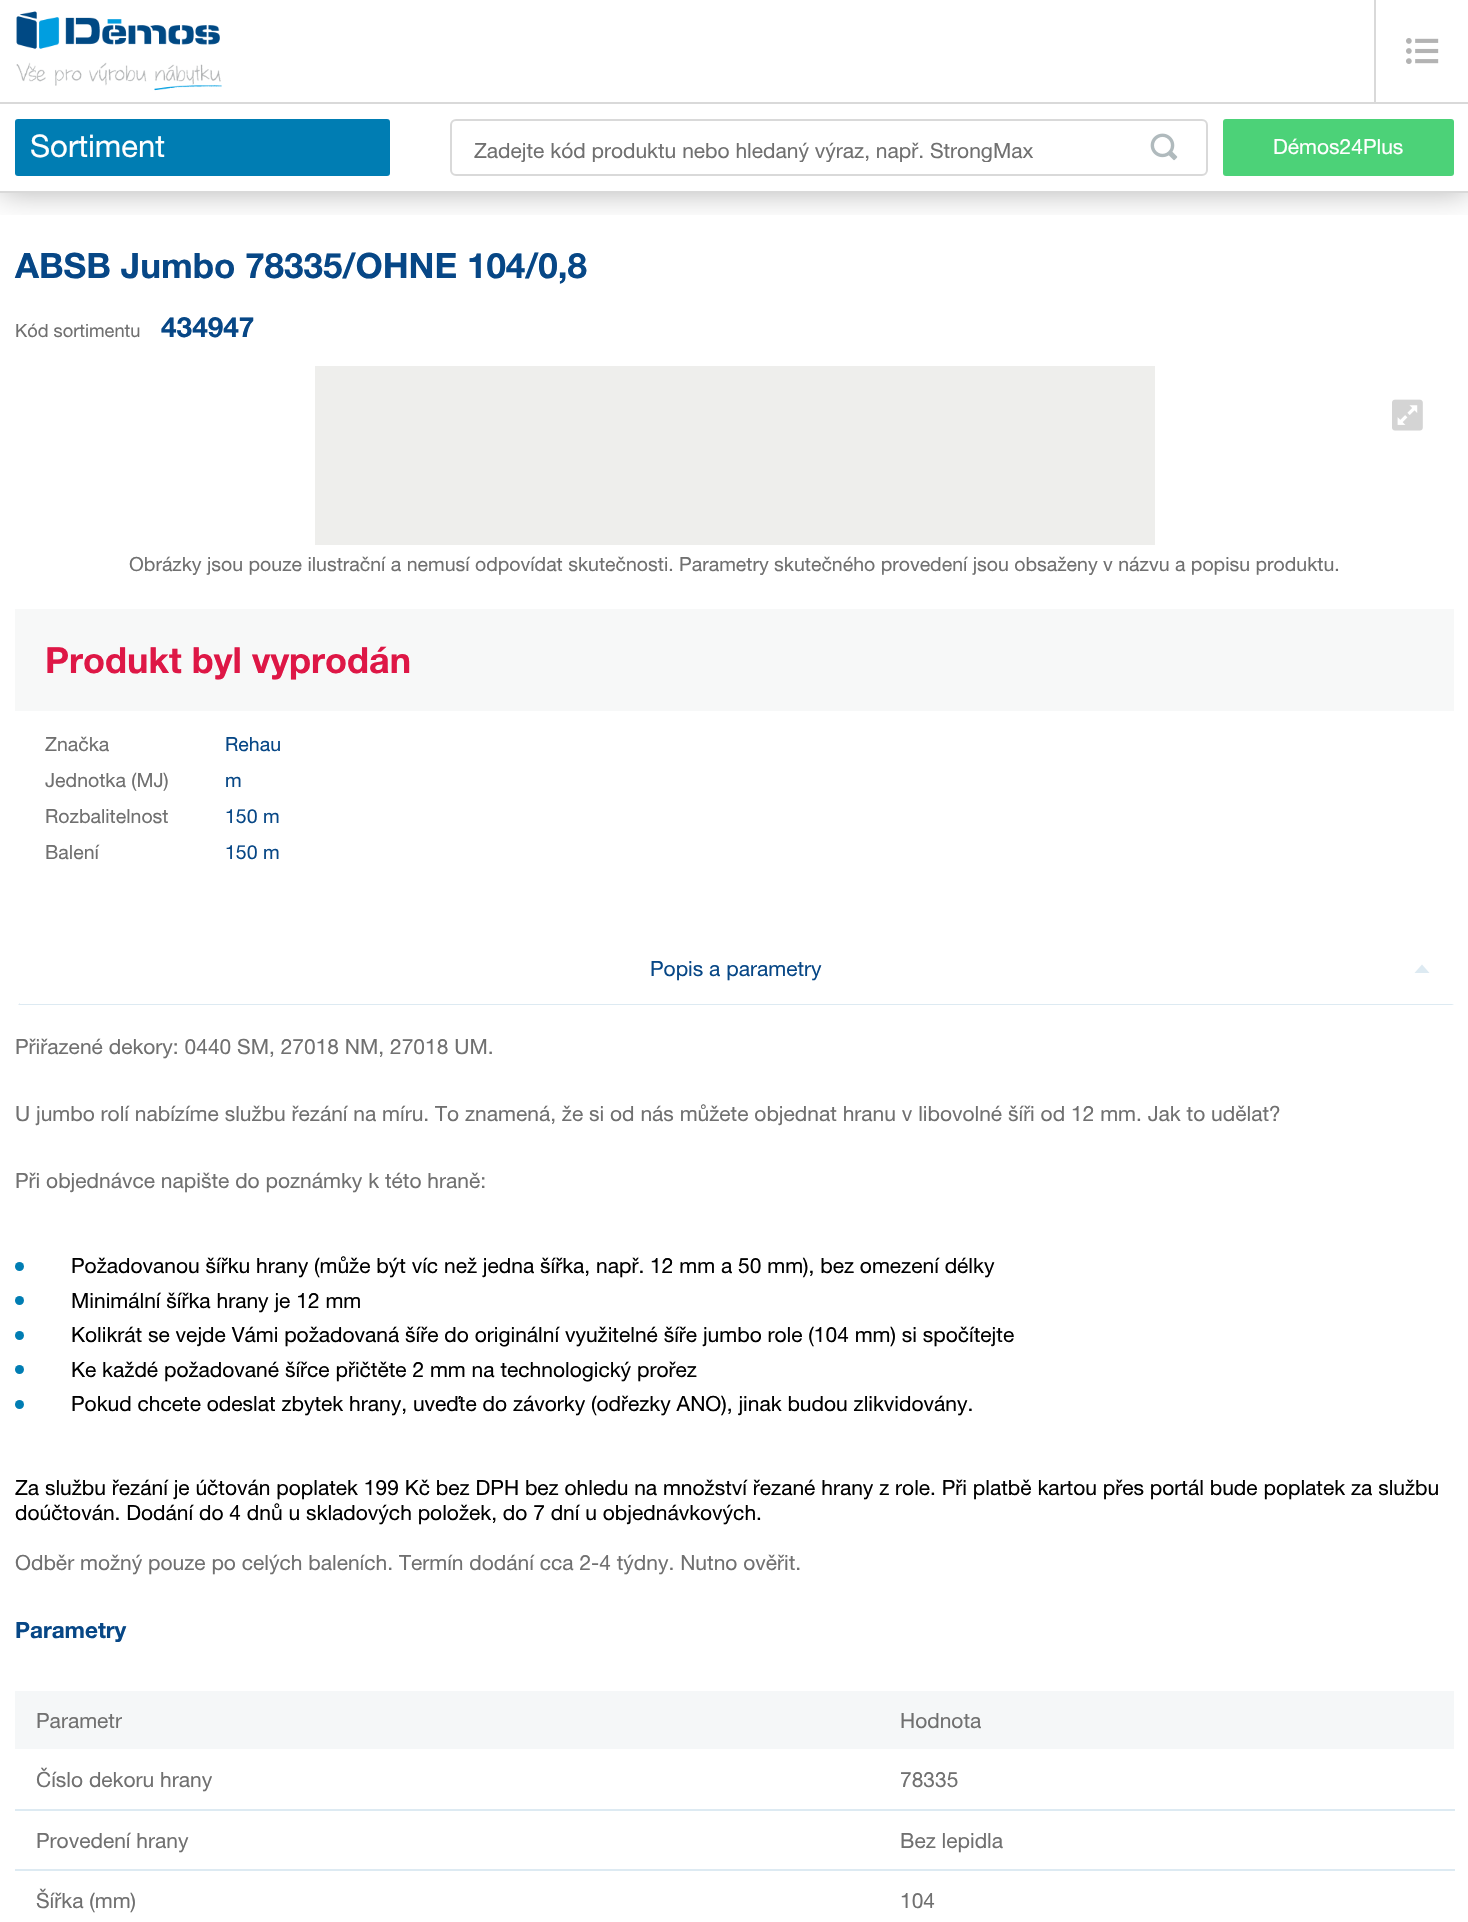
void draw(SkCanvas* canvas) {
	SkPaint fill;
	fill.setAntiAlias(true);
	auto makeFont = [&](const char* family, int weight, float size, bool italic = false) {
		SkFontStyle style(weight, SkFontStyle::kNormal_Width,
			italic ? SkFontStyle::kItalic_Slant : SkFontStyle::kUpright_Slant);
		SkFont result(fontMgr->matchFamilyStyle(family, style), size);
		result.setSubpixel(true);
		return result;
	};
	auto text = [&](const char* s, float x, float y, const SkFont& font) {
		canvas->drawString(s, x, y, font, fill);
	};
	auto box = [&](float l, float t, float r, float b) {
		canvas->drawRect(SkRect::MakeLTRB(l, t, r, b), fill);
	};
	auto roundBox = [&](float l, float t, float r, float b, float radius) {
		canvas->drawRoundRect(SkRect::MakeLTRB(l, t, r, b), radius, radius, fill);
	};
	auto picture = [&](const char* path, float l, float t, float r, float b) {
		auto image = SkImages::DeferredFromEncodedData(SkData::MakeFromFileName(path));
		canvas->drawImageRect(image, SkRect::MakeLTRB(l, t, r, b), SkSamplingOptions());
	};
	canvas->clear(0xFFFFFFFF);
	canvas->save();
	canvas->clipRect(SkRect::MakeLTRB(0, 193, 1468, 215));
	fill.setColor(0x4D000000);
	fill.setMaskFilter(SkMaskFilter::MakeBlur(kNormal_SkBlurStyle, 15));
	canvas->drawRect(SkRect::MakeLTRB(0, 0, 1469, 192), fill);
	fill.setMaskFilter(nullptr);
	canvas->restore();
	fill.setColor(0xFFD9D9D9);
	box(0, 191, 1468, 193);
	box(0, 102, 1468, 104);
	fill.setColor(0xFF007DB3);
	roundBox(15, 119, 390, 176, 3);
	picture("image0.png", 16, 11, 222, 91);
	fill.setColor(0xFFD9D9D9);
	box(1374, 0, 1376, 102);
	picture("image1.png", 1406, 38, 1439, 64);
	fill.setStyle(SkPaint::kStroke_Style);
	fill.setStrokeWidth(2);
	canvas->drawRoundRect(SkRect::MakeLTRB(451, 120, 1207, 175), 5, 5, fill);
	picture("image2.png", 1150, 133, 1178, 161);
	fill.setStyle(SkPaint::kFill_Style);
	fill.setColor(0xFF4CD278);
	roundBox(1223, 119, 1454, 176, 3);
	fill.setColor(0xFFEEEEEC);
	box(315, 366, 1155, 545);
	picture("image3.png", 1392, 399, 1423, 431);
	fill.setColor(0xFFF7F8F8);
	box(15, 609, 1454, 711);
	fill.setColor(0xFFDDEAF2);
	canvas->drawPath(SkPathBuilder().moveTo(1454, 1005).lineTo(1452, 1004).lineTo(20, 1004).lineTo(20, 1003).lineTo(18, 1005).close().detach(), fill);
	canvas->drawPath(SkPathBuilder().moveTo(1429.5f, 973).lineTo(1422, 964.5f).lineTo(1414.5f, 973).close().detach(), fill);
	fill.setColor(0xFF007DB3);
	canvas->drawCircle(19.5f, 1266.5f, 4.5f, fill);
	canvas->drawCircle(19.5f, 1300.5f, 4.5f, fill);
	canvas->drawCircle(19.5f, 1335.5f, 4.5f, fill);
	canvas->drawCircle(19.5f, 1369.5f, 4.5f, fill);
	canvas->drawCircle(19.5f, 1404.5f, 4.5f, fill);
	fill.setColor(0xFFF5F7F8);
	box(15, 1691, 1454, 1749);
	fill.setColor(0xFFDDEAF2);
	box(15, 1809, 1455, 1811);
	box(15, 1869, 1455, 1871);
	auto font1 = makeFont("Helvetica Neue", 400, 31);
	fill.setColor(0xFFFFFFFF);
	text("Sortiment", 30, 157, font1);
	canvas->save();
	canvas->clipRect(SkRect::MakeLTRB(474, 137, 1110, 162));
	auto font2 = makeFont("Helvetica Neue", 400, 21);
	fill.setColor(0xFF707070);
	text("Zadejte kód produktu nebo hledaný výraz, např. StrongMax", 474, 158, font2);
	canvas->restore();
	fill.setColor(0xFFFFFFFF);
	text("Démos24Plus", 1273, 154, font2);
	auto font3 = makeFont("Helvetica Neue", 700, 35);
	fill.setColor(0xFF074786);
	text("ABSB Jumbo 78335/OHNE 104/0,8", 15, 278, font3);
	auto font4 = makeFont("Helvetica Neue", 400, 18.25f);
	fill.setColor(0xFF707070);
	text("Kód sortimentu", 15, 337, font4);
	auto font5 = makeFont("Helvetica Neue", 700, 28);
	fill.setColor(0xFF074786);
	text("434947", 161, 337, font5);
	auto font6 = makeFont("Helvetica Neue", 400, 19.5f);
	fill.setColor(0xFF707070);
	text("Obrázky jsou pouze ilustrační a nemusí odpovídat skutečnosti. Parametry skutečného provedení jsou obsaženy v názvu a popisu produktu.", 129, 571, font6);
	auto font7 = makeFont("Helvetica Neue", 700, 36);
	fill.setColor(0xFFDE1746);
	text("Produkt byl vyprodán", 45, 673, font7);
	fill.setColor(0xFF707070);
	text("Značka", 45, 751, font6);
	fill.setColor(0xFF074786);
	text("Rehau", 225, 751, font6);
	fill.setColor(0xFF707070);
	text("Jednotka (MJ)", 45, 787, font6);
	fill.setColor(0xFF074786);
	text("m", 225, 787, font6);
	fill.setColor(0xFF707070);
	text("Rozbalitelnost", 45, 823, font6);
	fill.setColor(0xFF074786);
	text("150 m", 225, 823, font6);
	fill.setColor(0xFF707070);
	text("Balení", 45, 859, font6);
	fill.setColor(0xFF074786);
	text("150 m", 225, 859, font6);
	text("Popis a parametry", 650, 976, font2);
	fill.setColor(0xFF707070);
	text("Přiřazené dekory: 0440 SM, 27018 NM, 27018 UM.", 15, 1054, font2);
	text("U jumbo rolí nabízíme službu řezání na míru. To znamená, že si od nás můžete objednat hranu v libovolné šíři od 12 mm. Jak to udělat?", 15, 1121, font2);
	text("Při objednávce napište do poznámky k této hraně:", 15, 1188, font2);
	fill.setColor(0xFF000000);
	text("Požadovanou šířku hrany (může být víc než jedna šířka, např. 12 mm a 50 mm), bez omezení délky", 71, 1273, font2);
	text("Minimální šířka hrany je 12 mm", 71, 1308, font2);
	text("Kolikrát se vejde Vámi požadovaná šíře do originální využitelné šíře jumbo role (104 mm) si spočítejte", 71, 1342, font2);
	text("Ke každé požadované šířce přičtěte 2 mm na technologický prořez", 71, 1377, font2);
	text("Pokud chcete odeslat zbytek hrany, uveďte do závorky (odřezky ANO), jinak budou zlikvidovány.", 71, 1411, font2);
	text("Za službu řezání je účtován poplatek 199 Kč bez DPH bez ohledu na množství řezané hrany z role. Při platbě kartou přes portál bude poplatek za službu", 15, 1495, font2);
	text("doúčtován. Dodání do 4 dnů u skladových položek, do 7 dní u objednávkových.", 15, 1520, font2);
	fill.setColor(0xFF707070);
	text("Odběr možný pouze po celých baleních. Termín dodání cca 2-4 týdny. Nutno ověřit.", 15, 1570, font2);
	auto font8 = makeFont("Helvetica Neue", 700, 22.5f);
	fill.setColor(0xFF074786);
	text("Parametry", 15, 1638, font8);
	fill.setColor(0xFF707070);
	text("Parametr", 36, 1728, font2);
	text("Hodnota", 900, 1728, font2);
	text("Číslo dekoru hrany", 36, 1787, font2);
	text("78335", 900, 1787, font2);
	text("Provedení hrany", 36, 1848, font2);
	text("Bez lepidla", 900, 1848, font2);
	text("Šířka (mm)", 36, 1908, font2);
	text("104", 900, 1908, font2);
}
